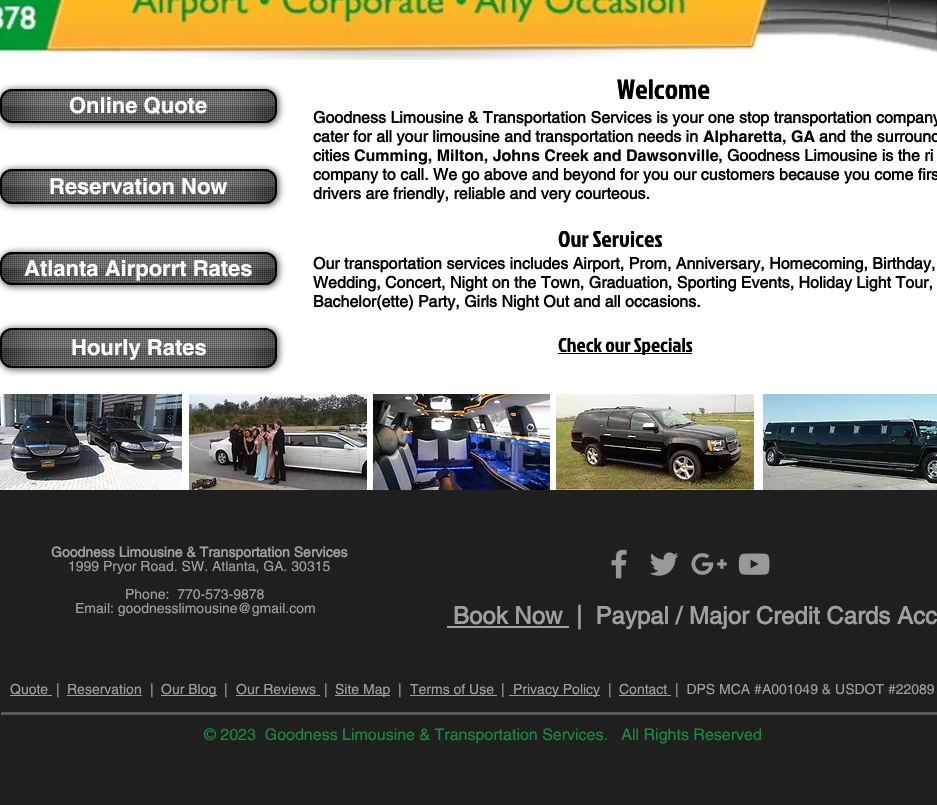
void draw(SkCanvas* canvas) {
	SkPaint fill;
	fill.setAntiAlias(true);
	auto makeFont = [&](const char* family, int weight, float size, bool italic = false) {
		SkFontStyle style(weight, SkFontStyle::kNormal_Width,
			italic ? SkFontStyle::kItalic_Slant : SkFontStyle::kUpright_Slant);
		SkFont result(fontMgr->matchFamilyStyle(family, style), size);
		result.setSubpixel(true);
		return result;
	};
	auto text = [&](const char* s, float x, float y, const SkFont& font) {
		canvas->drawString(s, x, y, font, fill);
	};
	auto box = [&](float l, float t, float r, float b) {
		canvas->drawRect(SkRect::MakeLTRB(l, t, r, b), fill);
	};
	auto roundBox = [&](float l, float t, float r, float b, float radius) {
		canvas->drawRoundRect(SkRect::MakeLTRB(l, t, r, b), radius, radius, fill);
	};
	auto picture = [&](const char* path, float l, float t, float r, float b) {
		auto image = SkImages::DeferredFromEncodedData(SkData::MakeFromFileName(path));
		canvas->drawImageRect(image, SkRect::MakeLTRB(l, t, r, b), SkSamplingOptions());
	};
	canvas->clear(0xFFFFFFFF);
	picture("image0.png", 0, 0, 937, 60);
	canvas->save();
	canvas->clipPath(SkPathBuilder(SkPathFillType::kEvenOdd).moveTo(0, 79).lineTo(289, 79).lineTo(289, 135).lineTo(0, 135).close().moveTo(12, 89).lineTo(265, 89).cubicTo(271.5f, 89, 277, 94.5f, 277, 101).lineTo(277, 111).cubicTo(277, 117.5f, 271.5f, 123, 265, 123).lineTo(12, 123).cubicTo(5.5f, 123, 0, 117.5f, 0, 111).lineTo(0, 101).cubicTo(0, 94.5f, 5.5f, 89, 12, 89).close().detach(), true);
	fill.setColor(0x99000000);
	fill.setMaskFilter(SkMaskFilter::MakeBlur(kNormal_SkBlurStyle, 3));
	canvas->drawRoundRect(SkRect::MakeLTRB(0, 89, 279, 125), 13, 13, fill);
	fill.setMaskFilter(nullptr);
	canvas->restore();
	fill.setColor(0x8A232323);
	roundBox(0, 89, 277, 123, 12);
	picture("image1.png", 0, 89, 277, 123);
	fill.setStyle(SkPaint::kStroke_Style);
	fill.setStrokeWidth(2);
	fill.setColor(0xFF000000);
	canvas->drawRoundRect(SkRect::MakeLTRB(1, 90, 276, 122), 11, 11, fill);
	picture("image2.png", 2, 91, 48, 121);
	picture("image4.png", 229, 91, 275, 121);
	canvas->save();
	canvas->clipPath(SkPathBuilder(SkPathFillType::kEvenOdd).moveTo(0, 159).lineTo(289, 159).lineTo(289, 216).lineTo(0, 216).close().moveTo(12, 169).lineTo(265, 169).cubicTo(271.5f, 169, 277, 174.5f, 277, 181).lineTo(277, 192).cubicTo(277, 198.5f, 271.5f, 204, 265, 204).lineTo(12, 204).cubicTo(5.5f, 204, 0, 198.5f, 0, 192).lineTo(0, 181).cubicTo(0, 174.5f, 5.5f, 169, 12, 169).close().detach(), true);
	fill.setStyle(SkPaint::kFill_Style);
	fill.setColor(0x99000000);
	fill.setMaskFilter(SkMaskFilter::MakeBlur(kNormal_SkBlurStyle, 3));
	canvas->drawRoundRect(SkRect::MakeLTRB(0, 169, 279, 206), 13, 13, fill);
	fill.setMaskFilter(nullptr);
	canvas->restore();
	fill.setColor(0x8A232323);
	roundBox(0, 169, 277, 204, 12);
	picture("image5.png", 0, 169, 277, 204);
	fill.setStyle(SkPaint::kStroke_Style);
	fill.setColor(0xFF000000);
	canvas->drawRoundRect(SkRect::MakeLTRB(1, 170, 276, 203), 11, 11, fill);
	picture("image6.png", 2, 171, 48, 202);
	picture("image8.png", 229, 171, 275, 202);
	fill.setStyle(SkPaint::kFill_Style);
	box(558, 353, 692, 354);
	canvas->save();
	canvas->clipPath(SkPathBuilder(SkPathFillType::kEvenOdd).moveTo(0, 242).lineTo(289, 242).lineTo(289, 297).lineTo(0, 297).close().moveTo(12, 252).lineTo(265, 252).cubicTo(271.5f, 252, 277, 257.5f, 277, 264).lineTo(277, 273).cubicTo(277, 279.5f, 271.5f, 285, 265, 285).lineTo(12, 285).cubicTo(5.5f, 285, 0, 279.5f, 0, 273).lineTo(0, 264).cubicTo(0, 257.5f, 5.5f, 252, 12, 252).close().detach(), true);
	fill.setColor(0x99000000);
	fill.setMaskFilter(SkMaskFilter::MakeBlur(kNormal_SkBlurStyle, 3));
	canvas->drawRoundRect(SkRect::MakeLTRB(0, 252, 279, 287), 13, 13, fill);
	fill.setMaskFilter(nullptr);
	canvas->restore();
	fill.setColor(0x8A232323);
	roundBox(0, 252, 277, 285, 12);
	picture("image9.png", 0, 252, 277, 285);
	fill.setStyle(SkPaint::kStroke_Style);
	fill.setColor(0xFF000000);
	canvas->drawRoundRect(SkRect::MakeLTRB(1, 253, 276, 284), 11, 11, fill);
	picture("image10.png", 2, 254, 48, 283);
	picture("image12.png", 229, 254, 275, 283);
	canvas->save();
	canvas->clipPath(SkPathBuilder(SkPathFillType::kEvenOdd).moveTo(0, 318).lineTo(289, 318).lineTo(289, 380).lineTo(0, 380).close().moveTo(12, 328).lineTo(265, 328).cubicTo(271.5f, 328, 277, 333.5f, 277, 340).lineTo(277, 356).cubicTo(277, 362.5f, 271.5f, 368, 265, 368).lineTo(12, 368).cubicTo(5.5f, 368, 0, 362.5f, 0, 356).lineTo(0, 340).cubicTo(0, 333.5f, 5.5f, 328, 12, 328).close().detach(), true);
	fill.setStyle(SkPaint::kFill_Style);
	fill.setColor(0x99000000);
	fill.setMaskFilter(SkMaskFilter::MakeBlur(kNormal_SkBlurStyle, 3));
	canvas->drawRoundRect(SkRect::MakeLTRB(0, 328, 279, 370), 13, 13, fill);
	fill.setMaskFilter(nullptr);
	canvas->restore();
	fill.setColor(0x8A232323);
	roundBox(0, 328, 277, 368, 12);
	picture("image13.png", 0, 328, 277, 368);
	fill.setStyle(SkPaint::kStroke_Style);
	fill.setColor(0xFF000000);
	canvas->drawRoundRect(SkRect::MakeLTRB(1, 329, 276, 367), 11, 11, fill);
	picture("image14.png", 2, 330, 48, 366);
	picture("image16.png", 229, 330, 275, 366);
	picture("image17.png", 0, 394, 182, 490);
	picture("image18.png", 189, 394, 367, 490);
	picture("image19.png", 373, 394, 550, 490);
	picture("image20.png", 556, 394, 754, 490);
	picture("image21.png", 763, 394, 937, 490);
	fill.setStyle(SkPaint::kFill_Style);
	fill.setColor(0xFF1F1F1F);
	box(0, 490, 937, 805);
	picture("image22.png", 611, 549, 627, 579);
	picture("image23.png", 650, 552, 679, 576);
	picture("image24.png", 691, 553, 727, 575);
	picture("image25.png", 738, 553, 770, 575);
	fill.setColor(0xFFA0A09F);
	box(447, 626, 569, 628);
	box(10, 695, 52, 696);
	box(67, 695, 142, 696);
	box(161, 695, 217, 696);
	box(236, 695, 320, 696);
	box(335, 695, 390, 696);
	box(410, 695, 497, 696);
	box(509, 695, 600, 696);
	box(619, 695, 671, 696);
	fill.setColor(0xFF5B5A5A);
	box(1, 712, 937, 715);
	auto font1 = makeFont("Jockey One", 400, 28);
	fill.setColor(0xFF000000);
	text("Welcome", 617, 99, font1);
	auto font2 = makeFont("helvetica", 700, 22);
	fill.setColor(0xFFFFFFFF);
	text("Online Quote", 69, 113, font2);
	picture("image3.png", 2, 91, 275, 106);
	text("Reservation Now", 49, 194, font2);
	picture("image7.png", 2, 171, 275, 187);
	auto font3 = makeFont("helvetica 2", 700, 16);
	fill.setColor(0xFF000000);
	text("Goodness Limousine & Transportation Services is your one stop transportation company", 313, 123, font3);
	text("cater for all your limousine and transportation needs in", 313, 142, font3);
	auto font4 = makeFont("helvetica", 700, 16);
	text("Alpharetta, GA", 703, 142, font4);
	text("and the surround", 819, 142, font3);
	text("cities", 313, 161, font3);
	text("Cumming, Milton, Johns Creek and Dawsonville", 354, 161, font4);
	text(", Goodness Limousine is the ri", 718, 161, font3);
	text("company to call. We go above and beyond for you our customers because you come firs", 313, 180, font3);
	text("drivers are friendly, reliable and very courteous.", 313, 199, font3);
	auto font5 = makeFont("Jockey One", 400, 23);
	text("Our Services", 558, 247, font5);
	text("Our transportation services includes Airport, Prom, Anniversary, Homecoming, Birthday,", 313, 269, font3);
	text("Wedding, Concert, Night on the Town, Graduation, Sporting Events, Holiday Light Tour,", 313, 288, font3);
	text("Bachelor(ette) Party, Girls Night Out and all occasions.", 313, 307, font3);
	auto font6 = makeFont("Jockey One", 400, 20);
	text("Check our Specials", 558, 352, font6);
	fill.setColor(0xFFFFFFFF);
	text("Atlanta Airporrt Rates", 24, 276, font2);
	picture("image11.png", 2, 254, 275, 269);
	text("Hourly Rates", 71, 355, font2);
	picture("image15.png", 2, 330, 275, 348);
	auto font7 = makeFont("helvetica 2", 700, 14);
	fill.setColor(0xFFA0A09F);
	text("Goodness Limousine & Transportation Services", 51, 557, font7);
	auto font8 = makeFont("helvetica", 400, 14);
	text("1999 Pryor Road. SW. Atlanta, GA. 30315", 68, 571, font8);
	text("Phone:  770-573-9878", 125, 599, font8);
	text("Email: goodnesslimousine@gmail.com", 75, 613, font8);
	auto font9 = makeFont("helvetica 2", 700, 24);
	text("Book Now", 453, 624, font9);
	text("|  Paypal / Major Credit Cards Acc", 576, 624, font9);
	text("Quote", 10, 694, font8);
	text("|", 56, 694, font8);
	text("Reservation", 67, 694, font8);
	text("|", 150, 694, font8);
	text("Our Blog", 161, 694, font8);
	text("|", 224, 694, font8);
	text("Our Reviews", 236, 694, font8);
	text("|", 324, 694, font8);
	text("Site Map", 335, 694, font8);
	text("|", 398, 694, font8);
	text("Terms of Use", 410, 694, font8);
	text("|", 501, 694, font8);
	text("Privacy Policy", 513, 694, font8);
	text("|", 608, 694, font8);
	text("Contact", 619, 694, font8);
	text("|  DPS MCA #A001049 & USDOT #22089", 675, 694, font8);
	auto font10 = makeFont("helvetica", 400, 16);
	fill.setColor(0xFF1C8A43);
	text("© 2023  Goodness Limousine & Transportation Services.   All Rights Reserved", 204, 740, font10);
}
